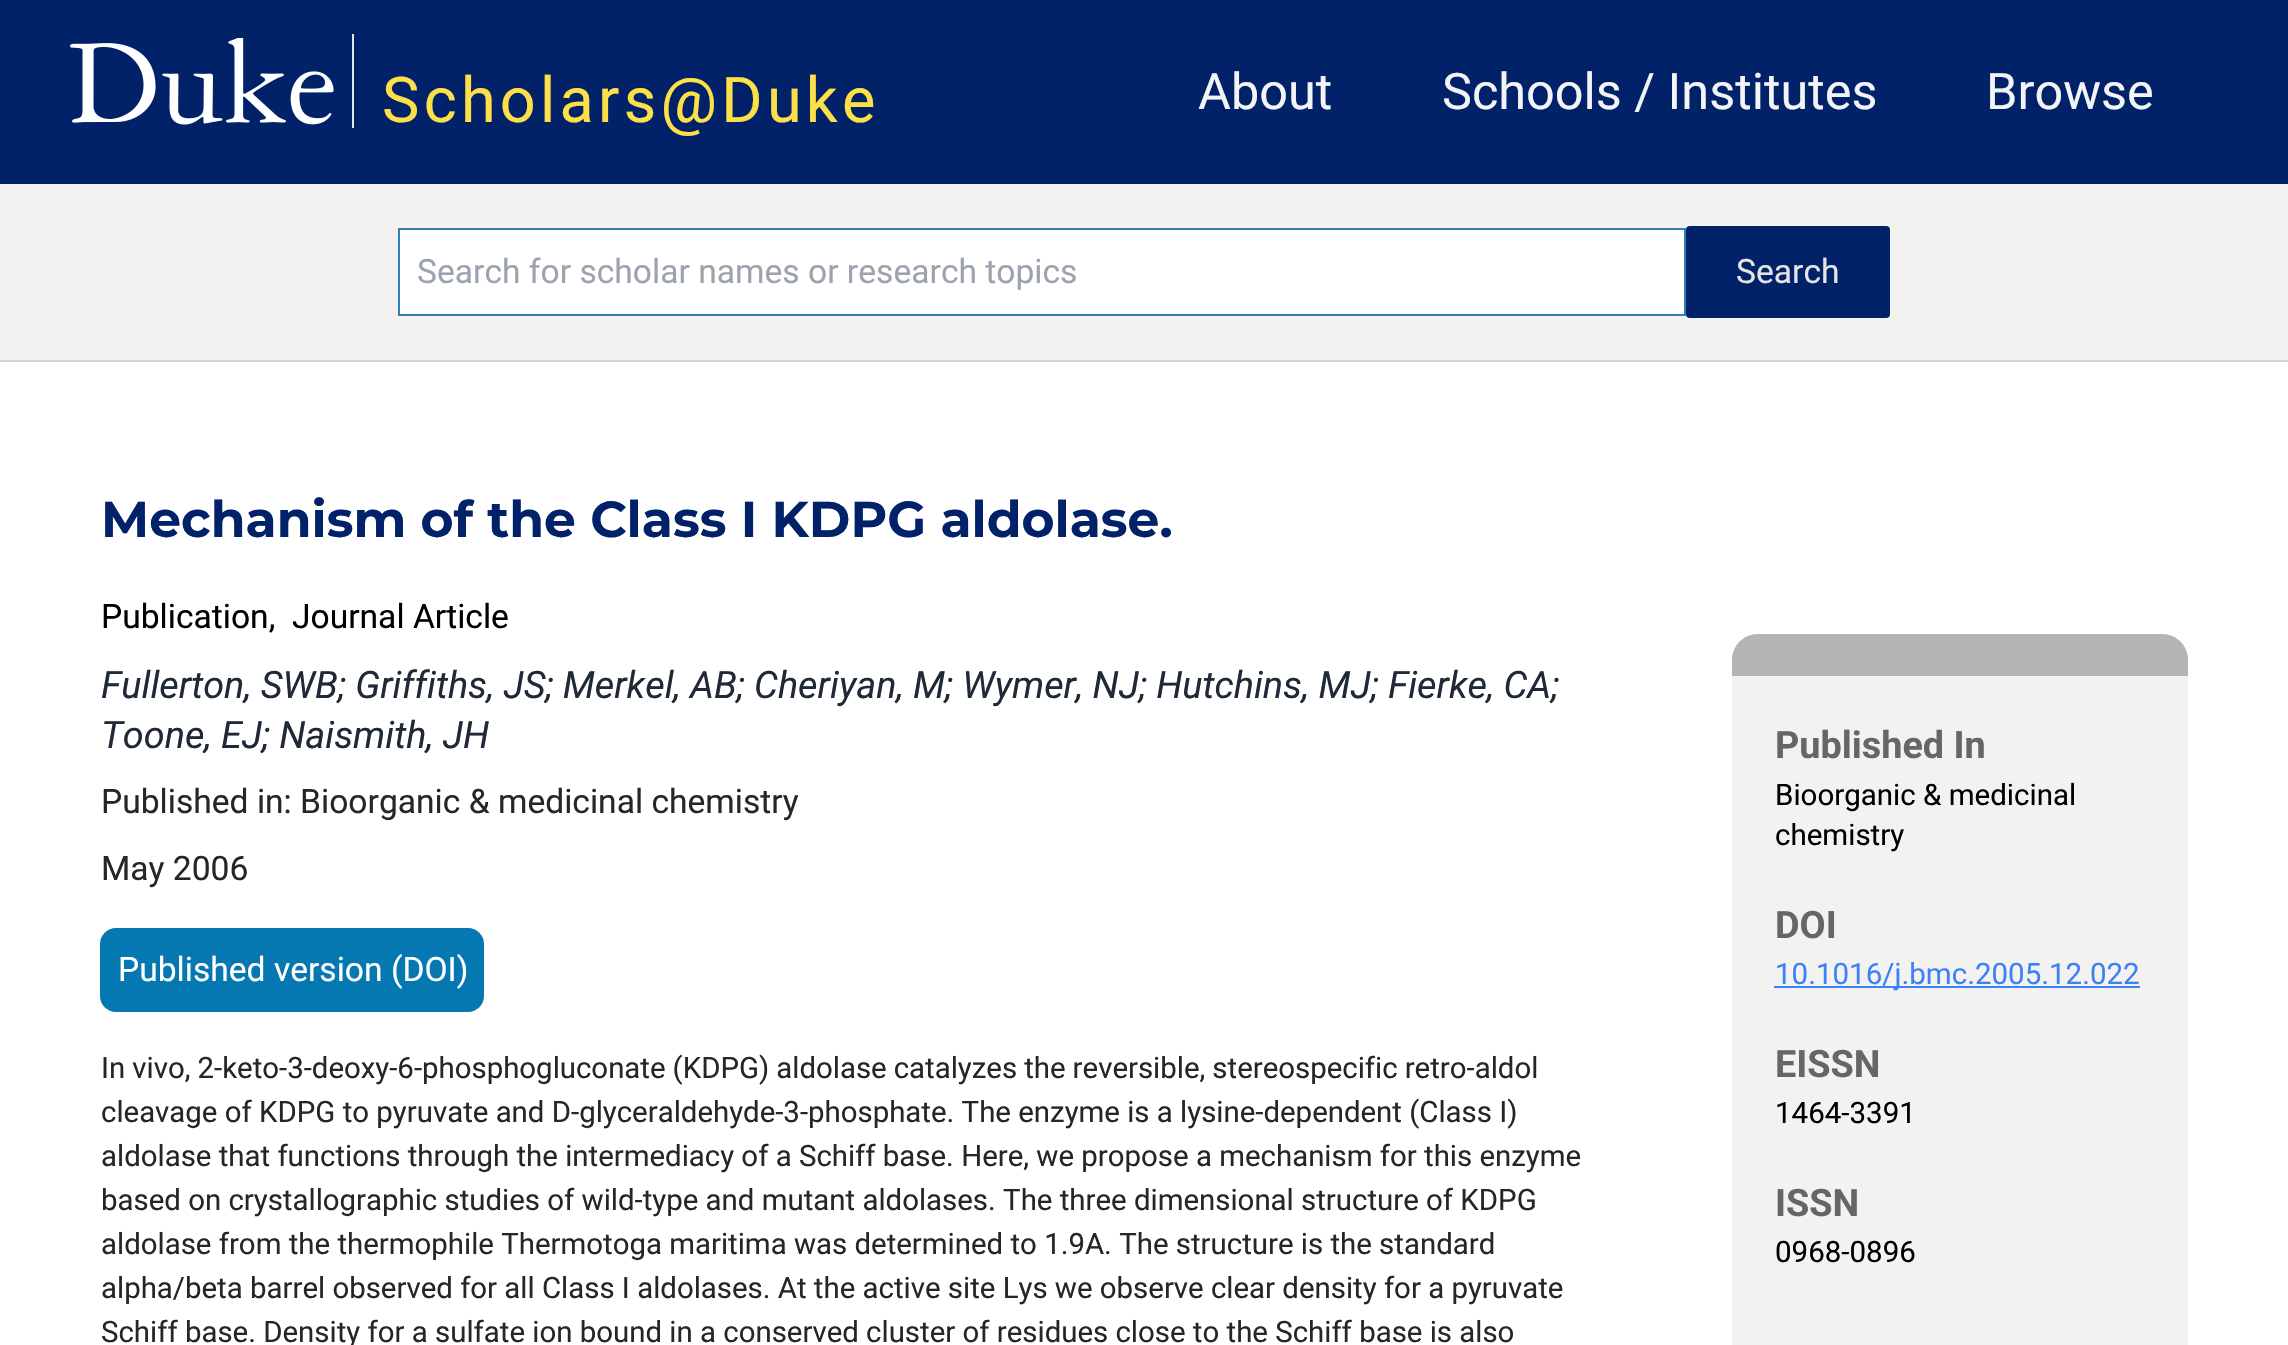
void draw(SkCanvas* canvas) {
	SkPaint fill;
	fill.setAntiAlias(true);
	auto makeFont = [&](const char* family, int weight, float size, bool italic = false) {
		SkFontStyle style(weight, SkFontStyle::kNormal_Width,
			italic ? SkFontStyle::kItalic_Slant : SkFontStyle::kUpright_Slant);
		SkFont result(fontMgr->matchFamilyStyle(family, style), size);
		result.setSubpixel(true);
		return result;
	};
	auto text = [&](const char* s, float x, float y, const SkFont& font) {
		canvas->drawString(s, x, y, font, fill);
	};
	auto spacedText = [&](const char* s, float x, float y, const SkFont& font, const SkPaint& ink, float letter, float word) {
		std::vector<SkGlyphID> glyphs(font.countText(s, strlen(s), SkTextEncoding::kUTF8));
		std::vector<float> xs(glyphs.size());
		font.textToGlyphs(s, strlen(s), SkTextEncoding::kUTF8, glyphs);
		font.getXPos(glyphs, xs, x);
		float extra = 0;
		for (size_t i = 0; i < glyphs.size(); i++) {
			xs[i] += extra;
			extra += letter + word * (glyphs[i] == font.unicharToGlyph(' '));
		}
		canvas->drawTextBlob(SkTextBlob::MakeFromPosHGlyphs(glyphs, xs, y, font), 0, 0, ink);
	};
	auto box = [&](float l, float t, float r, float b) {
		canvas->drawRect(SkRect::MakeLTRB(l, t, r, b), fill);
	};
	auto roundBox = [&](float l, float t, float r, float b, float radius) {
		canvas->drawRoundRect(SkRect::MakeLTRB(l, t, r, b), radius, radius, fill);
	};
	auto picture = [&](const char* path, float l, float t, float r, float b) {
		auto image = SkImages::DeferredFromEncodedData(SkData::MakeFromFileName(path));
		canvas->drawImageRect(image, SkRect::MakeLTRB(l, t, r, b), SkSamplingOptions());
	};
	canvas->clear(0xFFFFFFFF);
	fill.setColor(0xFF012169);
	box(0, 0, 2288, 184);
	picture("image0.png", 70, 38, 334, 125);
	fill.setColor(0xFFE5E7EB);
	box(352, 34, 354, 128);
	fill.setColor(0xFFD1D5DB);
	box(0, 360, 2288, 362);
	fill.setColor(0xFFF3F2F1);
	box(0, 184, 2288, 360);
	fill.setColor(0xFFFFFFFF);
	canvas->drawRect(SkRect::MakeLTRB(399, 229, 1685, 315), fill);
	fill.setStyle(SkPaint::kStroke_Style);
	fill.setStrokeWidth(2);
	fill.setColor(0xFF3180AF);
	canvas->drawRect(SkRect::MakeLTRB(399, 229, 1685, 315), fill);
	fill.setStyle(SkPaint::kFill_Style);
	fill.setColor(0xFF012169);
	roundBox(1686, 226, 1890, 318, 4);
	fill.setColor(0xFF0577B1);
	roundBox(100, 928, 484, 1012, 16);
	fill.setColor(0xFFF3F2F1);
	roundBox(1732, 634, 2188, 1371, 26);
	fill.setColor(0xFFB5B5B5);
	canvas->drawPath(SkPathBuilder().moveTo(1758, 634).lineTo(2162, 634).cubicTo(2176.5f, 634, 2188, 645.5f, 2188, 660).lineTo(2188, 676).lineTo(1732, 676).lineTo(1732, 660).cubicTo(1732, 645.5f, 1743.5f, 634, 1758, 634).close().detach(), fill);
	fill.setColor(0xFF3B82F6);
	box(1774, 986, 2140, 988);
	auto font1 = makeFont("Roboto", 400, 63);
	fill.setColor(0xFFFDE047);
	spacedText("Scholars@Duke", 382, 122, font1, fill, 4.25f, 0);
	auto font2 = makeFont("Roboto", 400, 50.4f);
	fill.setColor(0xFFF3F4F6);
	text("About", 1198, 109, font2);
	text("Schools / Institutes", 1442, 109, font2);
	text("Browse", 1986, 109, font2);
	auto font3 = makeFont("Roboto", 400, 33.6f);
	fill.setColor(0xFF9CA3AF);
	text("Search for scholar names or research topics", 417, 283, font3);
	fill.setColor(0xFFE5E5E5);
	text("Search", 1736, 283, font3);
	auto font4 = makeFont("Montserrat", 700, 50.4f);
	fill.setColor(0xFF012169);
	text("Mechanism of the Class I KDPG aldolase.", 101, 537, font4);
	fill.setColor(0xFF000000);
	text("Publication,  Journal Article", 101, 628, font3);
	auto font5 = makeFont("Roboto", 400, 37.8f, true);
	fill.setColor(0xFF1F2937);
	text("Fullerton, SWB; Griffiths, JS; Merkel, AB; Cheriyan, M; Wymer, NJ; Hutchins, MJ; Fierke, CA;", 101, 698, font5);
	text("Toone, EJ; Naismith, JH", 101, 748, font5);
	fill.setColor(0xFF262626);
	text("Published in: Bioorganic & medicinal chemistry", 101, 813, font3);
	text("May 2006", 101, 880, font3);
	fill.setColor(0xFFFFFFFF);
	text("Published version (DOI)", 118, 981, font3);
	auto font6 = makeFont("Roboto", 400, 29.4f);
	fill.setColor(0xFF262626);
	spacedText("In vivo, 2-keto-3-deoxy-6-phosphogluconate (KDPG) aldolase catalyzes the reversible, stereospecific retro-aldol", 101, 1078, font6, fill, 0, -0.25f);
	text("cleavage of KDPG to pyruvate and D-glyceraldehyde-3-phosphate. The enzyme is a lysine-dependent (Class I)", 101, 1122, font6);
	text("aldolase that functions through the intermediacy of a Schiff base. Here, we propose a mechanism for this enzyme", 101, 1166, font6);
	text("based on crystallographic studies of wild-type and mutant aldolases. The three dimensional structure of KDPG", 101, 1210, font6);
	text("aldolase from the thermophile Thermotoga maritima was determined to 1.9A. The structure is the standard", 101, 1254, font6);
	text("alpha/beta barrel observed for all Class I aldolases. At the active site Lys we observe clear density for a pyruvate", 101, 1298, font6);
	text("Schiff base. Density for a sulfate ion bound in a conserved cluster of residues close to the Schiff base is also", 101, 1342, font6);
	auto font7 = makeFont("Roboto", 700, 37.8f);
	fill.setColor(0xFF666666);
	text("Published In", 1775, 758, font7);
	auto font8 = makeFont("Roboto", 400, 29.5f);
	fill.setColor(0xFF000000);
	text("Bioorganic & medicinal", 1775, 805, font8);
	text("chemistry", 1775, 845, font8);
	fill.setColor(0xFF666666);
	text("DOI", 1775, 938, font7);
	fill.setColor(0xFF3B82F6);
	text("10.1016/j.bmc.2005.12.022", 1775, 984, font8);
	fill.setColor(0xFF666666);
	text("EISSN", 1775, 1077, font7);
	fill.setColor(0xFF000000);
	text("1464-3391", 1775, 1123, font8);
	fill.setColor(0xFF666666);
	text("ISSN", 1775, 1216, font7);
	fill.setColor(0xFF000000);
	text("0968-0896", 1775, 1262, font8);
}
